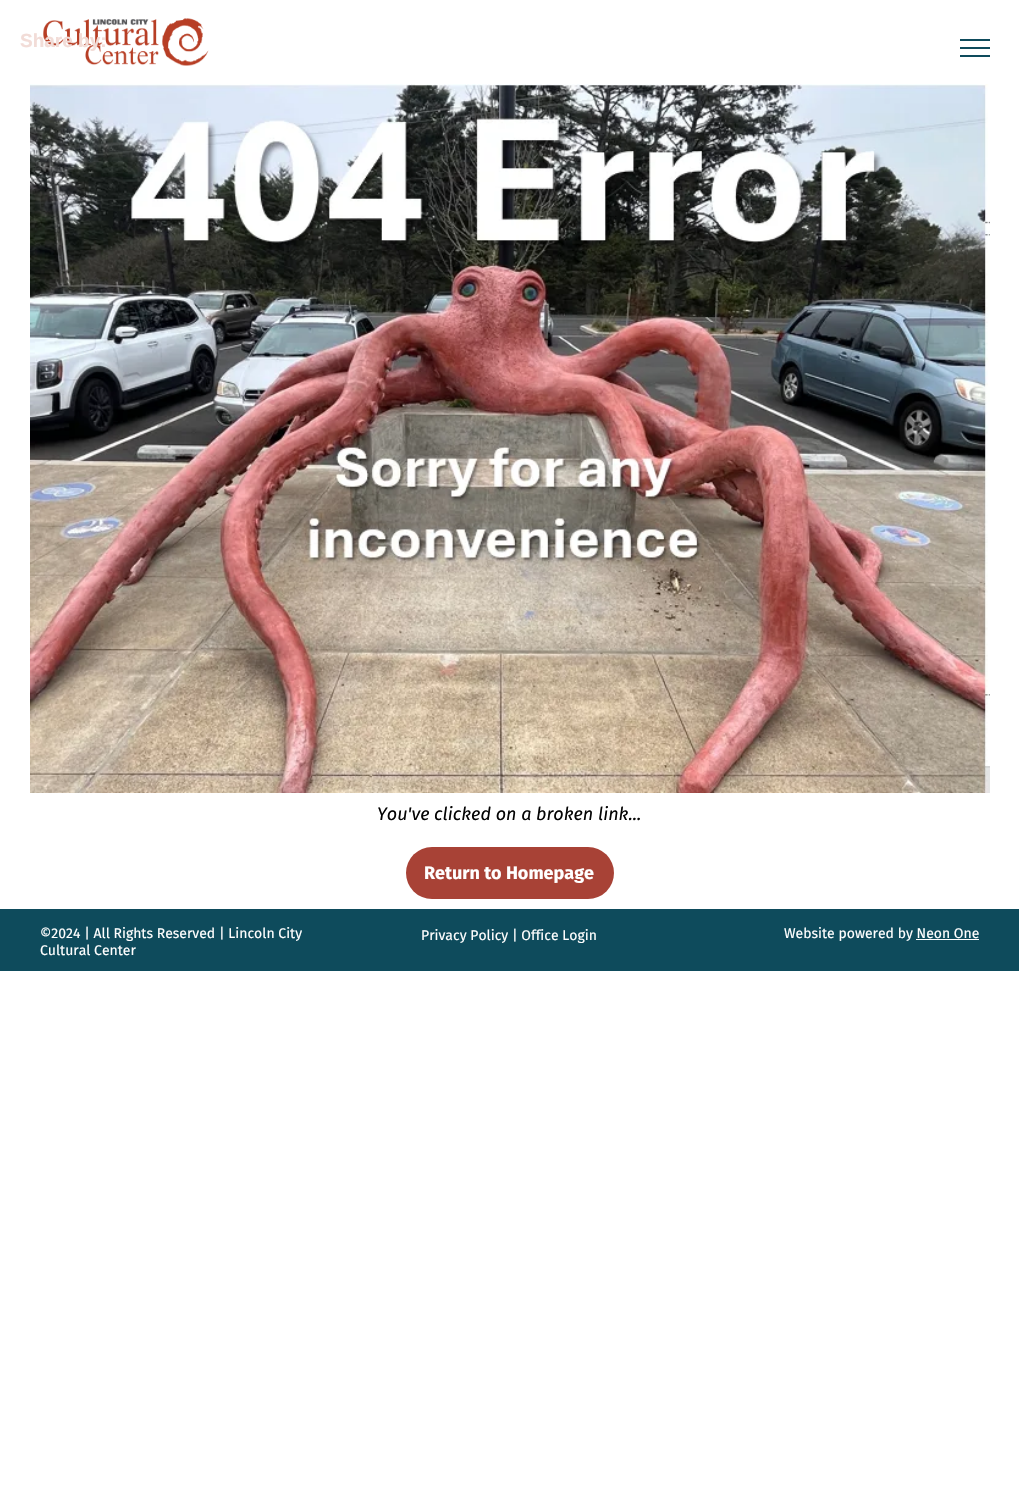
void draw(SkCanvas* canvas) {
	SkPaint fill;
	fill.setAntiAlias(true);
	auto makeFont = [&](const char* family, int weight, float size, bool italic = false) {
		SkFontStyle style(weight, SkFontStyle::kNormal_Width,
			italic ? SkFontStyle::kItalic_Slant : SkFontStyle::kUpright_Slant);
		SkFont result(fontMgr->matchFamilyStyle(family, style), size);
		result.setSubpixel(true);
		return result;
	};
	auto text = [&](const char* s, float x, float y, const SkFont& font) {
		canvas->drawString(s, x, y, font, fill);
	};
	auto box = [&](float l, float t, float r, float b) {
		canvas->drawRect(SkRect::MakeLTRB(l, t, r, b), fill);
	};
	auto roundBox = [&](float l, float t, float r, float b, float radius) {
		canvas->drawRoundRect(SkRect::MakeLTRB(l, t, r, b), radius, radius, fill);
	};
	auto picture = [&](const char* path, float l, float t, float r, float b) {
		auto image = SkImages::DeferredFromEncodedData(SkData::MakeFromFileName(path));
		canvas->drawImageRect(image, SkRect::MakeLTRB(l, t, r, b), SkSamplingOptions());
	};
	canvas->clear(0xFFFFFFFF);
	picture("image0.png", 43, 18, 209, 66);
	fill.setColor(0xFF0E4B5C);
	box(960, 39, 990, 41);
	box(960, 47, 990, 49);
	box(960, 55, 990, 57);
	picture("image1.png", 30, 84, 990, 793);
	fill.setColor(0xFFA84236);
	roundBox(406, 847, 614, 899, 26);
	fill.setColor(0xFF0E4B5C);
	box(0, 909, 1019, 971);
	fill.setColor(0xFFFFFFFF);
	box(916, 939, 979, 940);
	auto font1 = makeFont("Liberation Sans", 700, 19);
	fill.setColor(0xFFF2DCD7);
	text("Share by:", 20, 47, font1);
	auto font2 = makeFont("Fira Sans", 400, 18, true);
	fill.setColor(0xFF040404);
	text("You've clicked on a broken link...", 377, 820, font2);
	auto font3 = makeFont("Fira Sans", 700, 18);
	fill.setColor(0xFFFFFFFF);
	text("Return to Homepage", 424, 879, font3);
	auto font4 = makeFont("Fira Sans", 400, 14);
	text("©2024 | All Rights Reserved | Lincoln City", 40, 938, font4);
	text("Cultural Center", 40, 955, font4);
	text("Privacy Policy | Office Login", 421, 940, font4);
	text("Website powered by Neon One", 784, 938, font4);
}
